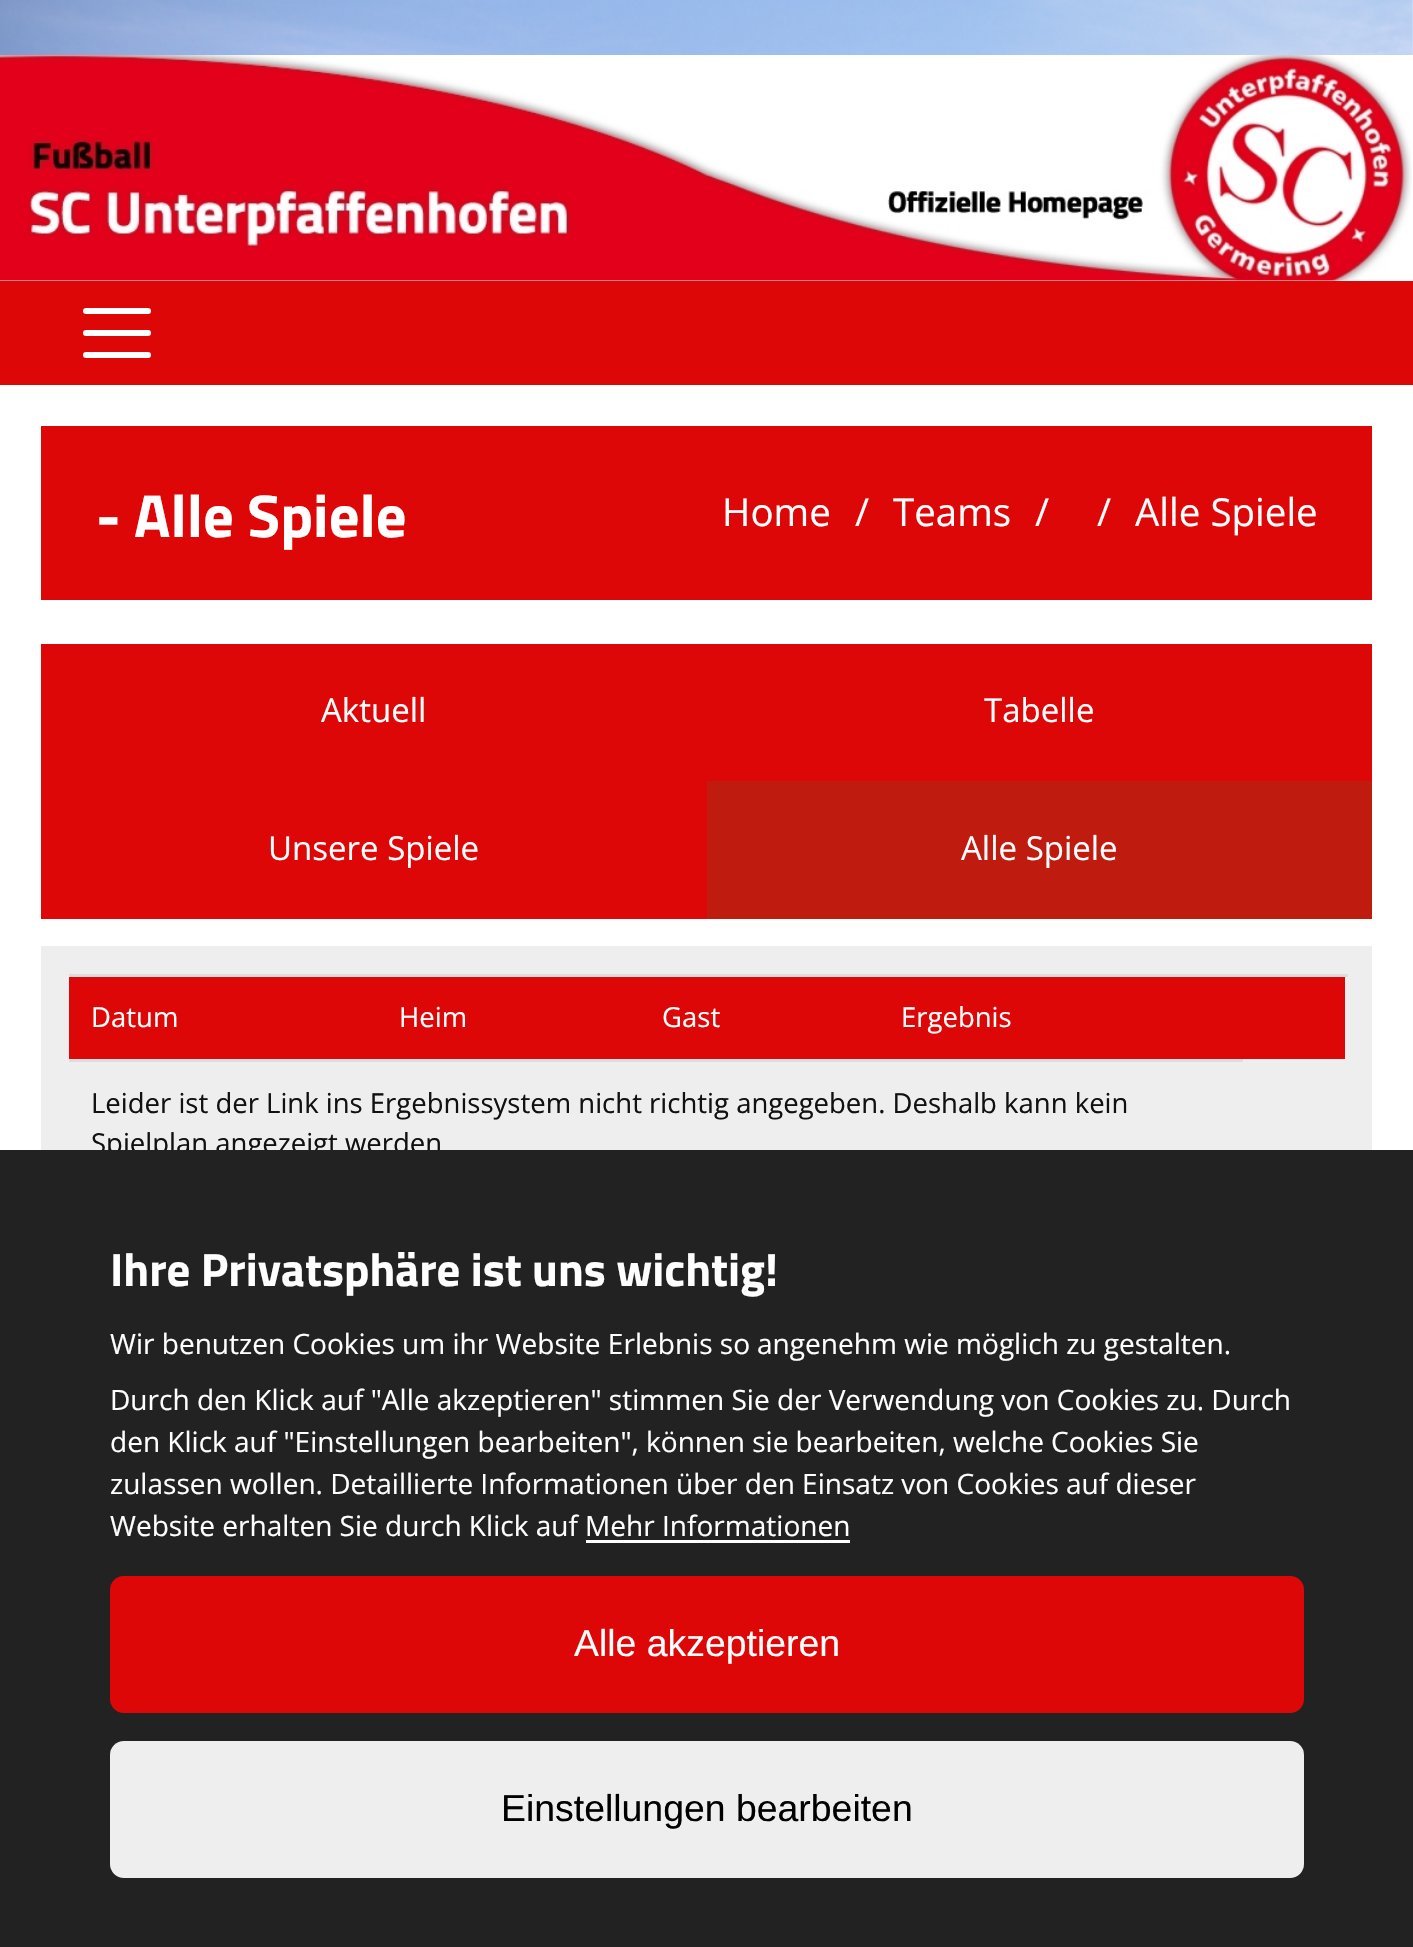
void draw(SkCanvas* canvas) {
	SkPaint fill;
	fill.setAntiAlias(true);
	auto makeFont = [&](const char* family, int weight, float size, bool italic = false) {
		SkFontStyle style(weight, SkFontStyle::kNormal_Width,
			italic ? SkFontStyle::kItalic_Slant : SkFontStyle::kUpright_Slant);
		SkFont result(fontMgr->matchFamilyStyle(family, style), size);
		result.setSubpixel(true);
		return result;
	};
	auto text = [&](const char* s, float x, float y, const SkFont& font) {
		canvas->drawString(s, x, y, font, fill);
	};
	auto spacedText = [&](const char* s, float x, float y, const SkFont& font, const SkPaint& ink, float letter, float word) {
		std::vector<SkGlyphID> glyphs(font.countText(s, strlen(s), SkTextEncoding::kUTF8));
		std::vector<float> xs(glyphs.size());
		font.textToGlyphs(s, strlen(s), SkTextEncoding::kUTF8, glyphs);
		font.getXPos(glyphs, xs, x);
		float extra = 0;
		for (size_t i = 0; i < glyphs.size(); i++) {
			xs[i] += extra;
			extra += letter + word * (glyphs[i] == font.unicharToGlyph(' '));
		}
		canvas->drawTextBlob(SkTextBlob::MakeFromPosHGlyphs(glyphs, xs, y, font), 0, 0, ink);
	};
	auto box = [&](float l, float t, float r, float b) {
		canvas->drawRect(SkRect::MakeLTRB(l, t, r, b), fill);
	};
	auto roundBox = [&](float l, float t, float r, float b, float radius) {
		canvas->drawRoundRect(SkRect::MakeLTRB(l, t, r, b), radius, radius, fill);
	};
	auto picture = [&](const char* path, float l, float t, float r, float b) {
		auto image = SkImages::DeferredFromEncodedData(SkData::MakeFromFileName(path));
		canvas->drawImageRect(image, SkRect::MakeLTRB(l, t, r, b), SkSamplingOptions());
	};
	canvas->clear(0xFFFFFFFF);
	picture("image0.png", 0, 0, 1413, 55);
	picture("image1.png", 0, 55, 1412, 281);
	fill.setColor(0xFFDE0707);
	box(0, 281, 1413, 385);
	fill.setColor(0xFFFFFFFF);
	roundBox(83, 308, 151, 314, 3);
	roundBox(83, 330, 151, 336, 3);
	roundBox(83, 352, 151, 358, 3);
	fill.setColor(0xFFDE0707);
	box(41, 426, 1372, 600);
	box(41, 644, 1372, 781);
	box(41, 781, 707, 919);
	fill.setColor(0xFFBF1B0F);
	box(707, 781, 1372, 919);
	fill.setColor(0xFFEEEEEE);
	box(41, 946, 1372, 1150);
	fill.setColor(0xFFDDDDDD);
	box(69, 974, 1348, 977);
	fill.setColor(0xFFDE0707);
	box(69, 977, 1345, 1059);
	fill.setColor(0xFFDDDDDD);
	box(69, 1059, 1243, 1062);
	auto font1 = makeFont("Titillium Web", 700, 60.5f);
	fill.setColor(0xFFFFFFFF);
	text("- Alle Spiele", 96, 537, font1);
	auto font2 = makeFont("Open Sans", 400, 38.5f);
	text("Home", 722, 526, font2);
	text("/", 855, 526, font2);
	text("Teams", 893, 526, font2);
	text("/", 1035, 526, font2);
	text("/", 1097, 526, font2);
	text("Alle Spiele", 1135, 526, font2);
	auto font3 = makeFont("Open Sans", 400, 33);
	text("Aktuell", 321, 722, font3);
	text("Tabelle", 984, 722, font3);
	text("Unsere Spiele", 268, 860, font3);
	text("Alle Spiele", 961, 860, font3);
	auto font4 = makeFont("Open Sans", 400, 27.5f);
	text("Datum", 91, 1027, font4);
	text("Heim", 399, 1027, font4);
	text("Gast", 662, 1027, font4);
	text("Ergebnis", 901, 1027, font4);
	fill.setColor(0xFF111111);
	text("Leider ist der Link ins Ergebnissystem nicht richtig angegeben. Deshalb kann kein", 91, 1113, font4);
	text("Spielplan angezeigt werden", 91, 1153, font4);
	fill.setColor(0xFF222222);
	box(0, 1150, 1413, 1947);
	auto font5 = makeFont("Titillium Web", 700, 46.75f);
	fill.setColor(0xFFFFFFFF);
	text("Ihre Privatsphäre ist uns wichtig!", 110, 1286, font5);
	auto font6 = makeFont("Open Sans", 400, 28.05f);
	text("Wir benutzen Cookies um ihr Website Erlebnis so", 110, 1354, font6);
	text("angenehm wie möglich zu gestalten.", 757, 1354, font6);
	text("Durch den Klick auf \"Alle akzeptieren\" stimmen Sie der Verwendung von Cookies zu. Durch", 110, 1410, font6);
	spacedText("den Klick auf \"Einstellungen bearbeiten\", können sie bearbeiten, welche", 110, 1452, font6, fill, 0, -0.1f);
	text("Cookies Sie", 1051, 1452, font6);
	spacedText("zulassen wollen. Detaillierte Informationen über den Einsatz von Cookies auf dieser", 110, 1494, font6, fill, 0, -0.1f);
	text("Website erhalten Sie durch Klick auf", 110, 1536, font6);
	text("Mehr Informationen", 585, 1536, font6);
	box(586, 1540, 850, 1543);
	fill.setColor(0xFFDE0707);
	roundBox(110, 1576, 1304, 1713, 14);
	auto font7 = makeFont("Liberation Sans", 400, 37.4f);
	fill.setColor(0xFFFFFFFF);
	text("Alle akzeptieren", 574, 1656, font7);
	fill.setColor(0xFFEEEEEE);
	roundBox(110, 1741, 1304, 1878, 14);
	fill.setColor(0xFF000000);
	text("Einstellungen bearbeiten", 501, 1821, font7);
}
